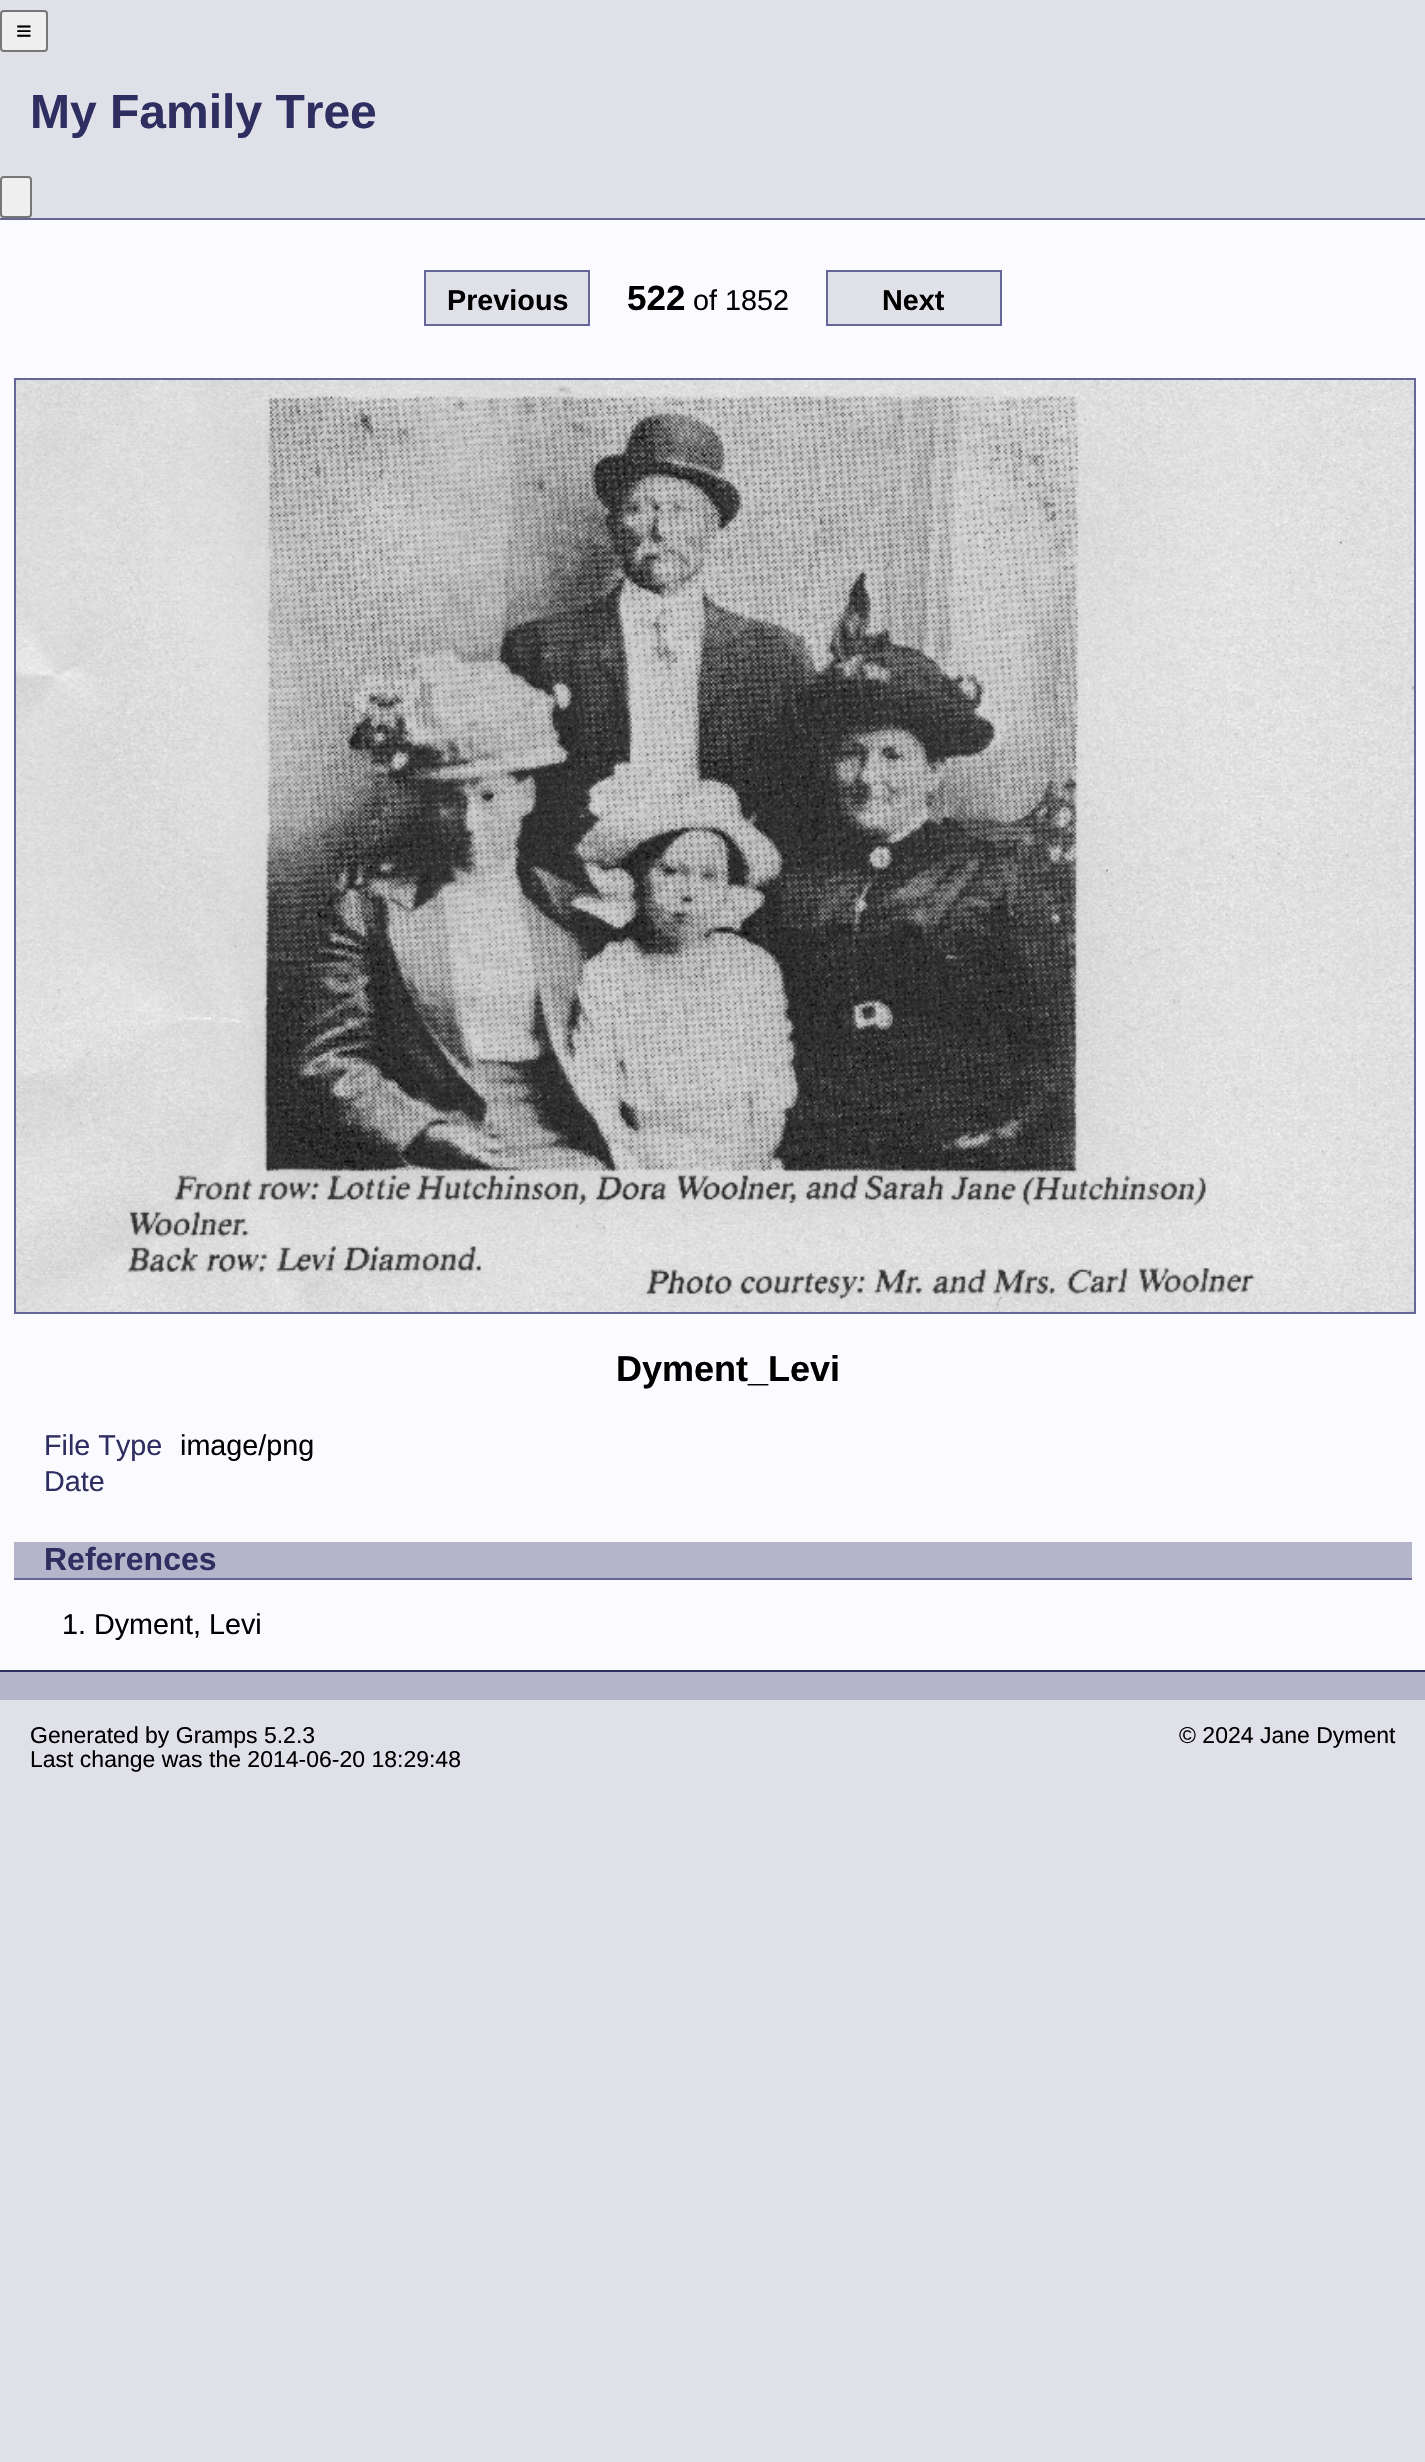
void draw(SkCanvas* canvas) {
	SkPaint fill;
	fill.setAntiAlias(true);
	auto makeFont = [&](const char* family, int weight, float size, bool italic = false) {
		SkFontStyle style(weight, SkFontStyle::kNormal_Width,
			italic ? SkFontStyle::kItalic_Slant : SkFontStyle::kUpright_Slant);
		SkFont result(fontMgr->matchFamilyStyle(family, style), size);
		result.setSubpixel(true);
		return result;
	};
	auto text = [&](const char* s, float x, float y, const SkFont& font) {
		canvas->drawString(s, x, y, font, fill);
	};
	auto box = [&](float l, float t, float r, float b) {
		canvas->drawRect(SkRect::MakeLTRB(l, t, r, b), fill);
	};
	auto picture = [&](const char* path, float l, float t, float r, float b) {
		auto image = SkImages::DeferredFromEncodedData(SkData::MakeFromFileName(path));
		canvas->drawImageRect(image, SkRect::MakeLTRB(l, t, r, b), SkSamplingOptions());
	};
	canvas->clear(0xFFE0E0E9);
	fill.setColor(0xFFEFEFEF);
	canvas->drawRoundRect(SkRect::MakeLTRB(1, 11, 47, 51), 3, 3, fill);
	fill.setStyle(SkPaint::kStroke_Style);
	fill.setStrokeWidth(2);
	fill.setColor(0xFF767676);
	canvas->drawRoundRect(SkRect::MakeLTRB(1, 11, 47, 51), 3, 3, fill);
	fill.setStyle(SkPaint::kFill_Style);
	fill.setColor(0xFFEFEFEF);
	canvas->drawRoundRect(SkRect::MakeLTRB(1, 177, 31, 217), 3, 3, fill);
	fill.setStyle(SkPaint::kStroke_Style);
	fill.setColor(0xFF767676);
	canvas->drawRoundRect(SkRect::MakeLTRB(1, 177, 31, 217), 3, 3, fill);
	fill.setStyle(SkPaint::kFill_Style);
	fill.setColor(0xFFFAFAFF);
	box(0, 220, 1425, 1670);
	fill.setColor(0xFF666699);
	box(0, 218, 1425, 220);
	fill.setColor(0xFFE0E0E9);
	canvas->drawRect(SkRect::MakeLTRB(425, 271, 589, 325), fill);
	fill.setStyle(SkPaint::kStroke_Style);
	fill.setColor(0xFF666699);
	canvas->drawRect(SkRect::MakeLTRB(425, 271, 589, 325), fill);
	fill.setStyle(SkPaint::kFill_Style);
	fill.setColor(0xFFE0E0E9);
	canvas->drawRect(SkRect::MakeLTRB(827, 271, 1001, 325), fill);
	fill.setStyle(SkPaint::kStroke_Style);
	fill.setColor(0xFF666699);
	canvas->drawRect(SkRect::MakeLTRB(827, 271, 1001, 325), fill);
	canvas->drawRect(SkRect::MakeLTRB(15, 379, 1415, 1313), fill);
	picture("image0.png", 16, 380, 1414, 1312);
	fill.setStyle(SkPaint::kFill_Style);
	fill.setColor(0xFFB4B4CB);
	box(14, 1542, 1412, 1578);
	fill.setColor(0xFF666699);
	box(14, 1578, 1412, 1580);
	fill.setColor(0xFFB4B4CB);
	box(0, 1672, 1425, 1700);
	fill.setColor(0xFF2E2E61);
	box(0, 1670, 1425, 1672);
	auto font1 = makeFont("Liberation Sans", 400, 27);
	fill.setColor(0xFF000000);
	text("≡", 16, 40, font1);
	auto font2 = makeFont("Liberation Sans", 700, 48);
	fill.setColor(0xFF2E2E61);
	text("My Family Tree", 30, 128, font2);
	auto font3 = makeFont("Liberation Sans", 700, 28.75f);
	fill.setColor(0xFF000000);
	text("Previous", 447, 310, font3);
	auto font4 = makeFont("Liberation Sans", 700, 35);
	text("522", 627, 310, font4);
	auto font5 = makeFont("Liberation Sans", 400, 28.75f);
	text("of 1852", 693, 310, font5);
	text("Next", 882, 310, font3);
	auto font6 = makeFont("Liberation Sans", 700, 36);
	text("Dyment_Levi", 616, 1381, font6);
	fill.setColor(0xFF2E2E61);
	text("File Type", 44, 1455, font5);
	fill.setColor(0xFF000000);
	text("image/png", 180, 1455, font5);
	fill.setColor(0xFF2E2E61);
	text("Date", 44, 1491, font5);
	auto font7 = makeFont("Liberation Sans", 700, 32);
	text("References", 44, 1570, font7);
	fill.setColor(0xFF000000);
	text("1. Dyment, Levi", 62, 1634, font5);
	auto font8 = makeFont("Liberation Sans", 400, 23);
	text("Generated by Gramps 5.2.3", 30, 1743, font8);
	text("Last change was the 2014-06-20 18:29:48", 30, 1767, font8);
	text("© 2024 Jane Dyment", 1179, 1743, font8);
}
